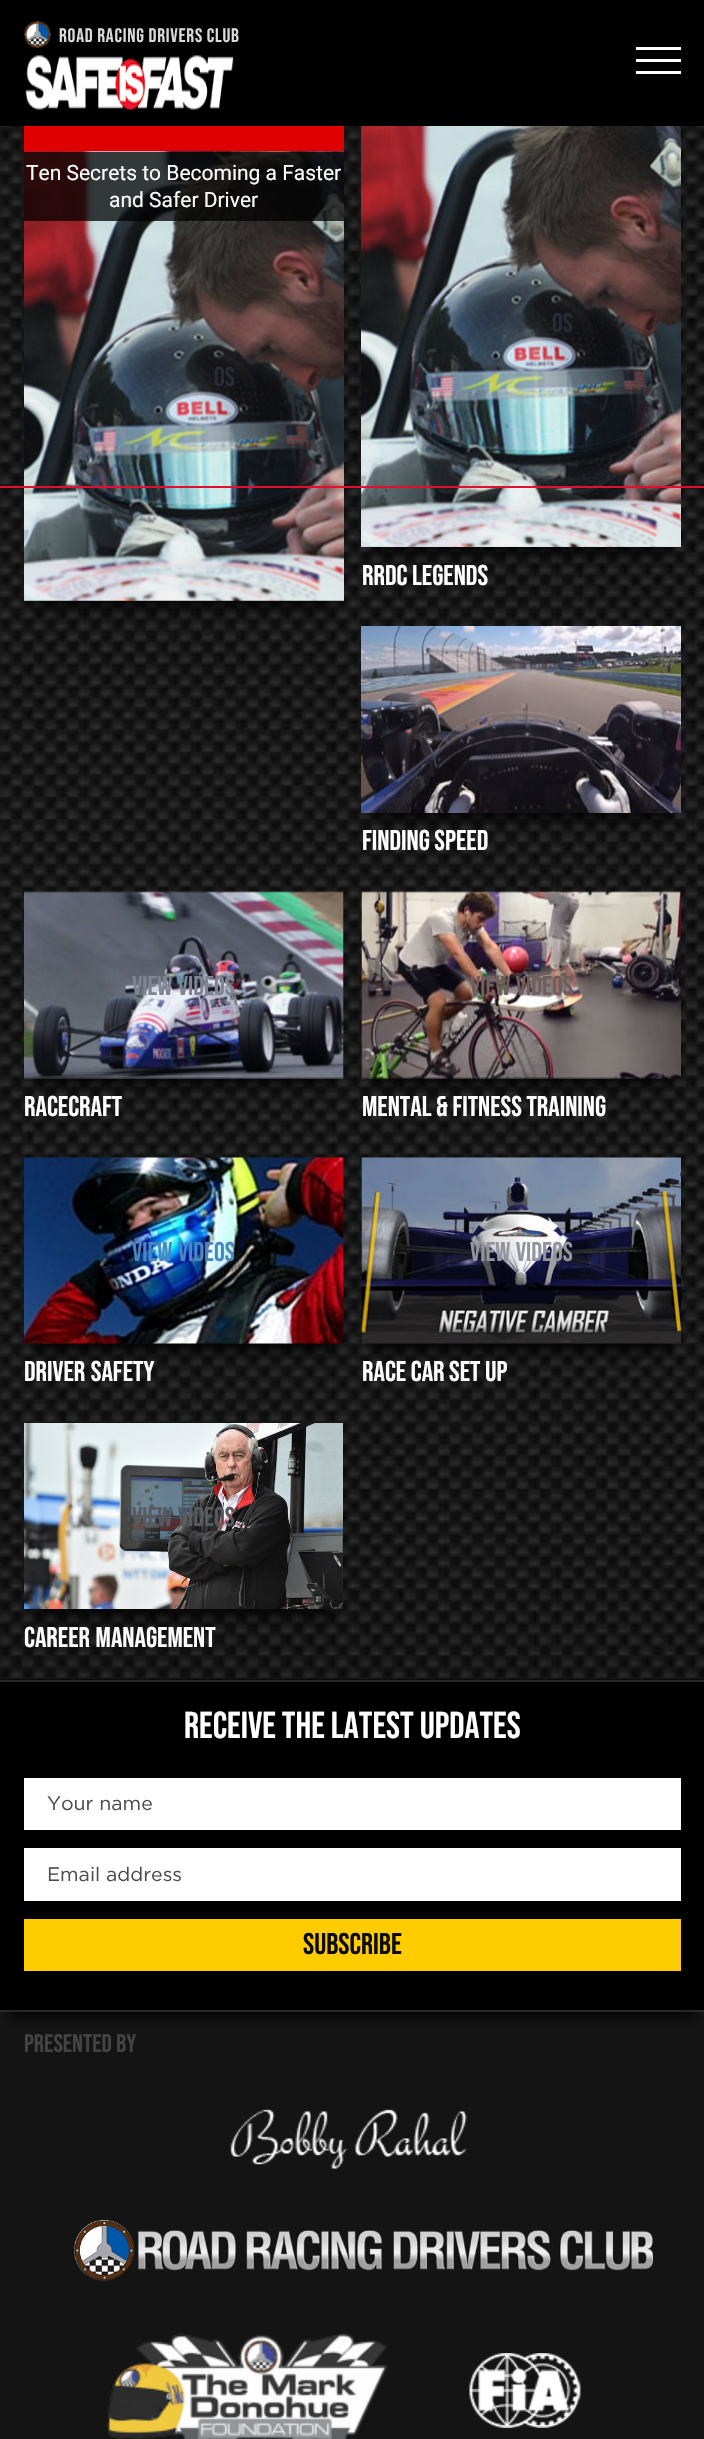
void draw(SkCanvas* canvas) {
	SkPaint fill;
	fill.setAntiAlias(true);
	auto makeFont = [&](const char* family, int weight, float size, bool italic = false) {
		SkFontStyle style(weight, SkFontStyle::kNormal_Width,
			italic ? SkFontStyle::kItalic_Slant : SkFontStyle::kUpright_Slant);
		SkFont result(fontMgr->matchFamilyStyle(family, style), size);
		result.setSubpixel(true);
		return result;
	};
	auto text = [&](const char* s, float x, float y, const SkFont& font) {
		canvas->drawString(s, x, y, font, fill);
	};
	auto spacedText = [&](const char* s, float x, float y, const SkFont& font, const SkPaint& ink, float letter, float word) {
		std::vector<SkGlyphID> glyphs(font.countText(s, strlen(s), SkTextEncoding::kUTF8));
		std::vector<float> xs(glyphs.size());
		font.textToGlyphs(s, strlen(s), SkTextEncoding::kUTF8, glyphs);
		font.getXPos(glyphs, xs, x);
		float extra = 0;
		for (size_t i = 0; i < glyphs.size(); i++) {
			xs[i] += extra;
			extra += letter + word * (glyphs[i] == font.unicharToGlyph(' '));
		}
		canvas->drawTextBlob(SkTextBlob::MakeFromPosHGlyphs(glyphs, xs, y, font), 0, 0, ink);
	};
	auto box = [&](float l, float t, float r, float b) {
		canvas->drawRect(SkRect::MakeLTRB(l, t, r, b), fill);
	};
	auto picture = [&](const char* path, float l, float t, float r, float b) {
		auto image = SkImages::DeferredFromEncodedData(SkData::MakeFromFileName(path));
		canvas->drawImageRect(image, SkRect::MakeLTRB(l, t, r, b), SkSamplingOptions());
	};
	canvas->clear(0xFF000000);
	picture("image0.png", 24, 21, 51, 48);
	picture("image1.png", 25, 55, 234, 110);
	fill.setColor(0xFFFFFFFF);
	box(636, 47, 681, 50);
	box(636, 59, 681, 62);
	box(636, 71, 681, 74);
	picture("image2.png", 0, 126, 704, 1680);
	fill.setColor(0xFFDE0000);
	box(24, 126, 344, 152);
	fill.setColor(0xFF000000);
	fill.setMaskFilter(SkMaskFilter::MakeBlur(kNormal_SkBlurStyle, 7.5f));
	canvas->drawRect(SkRect::MakeLTRB(33, 174, 335, 606), fill);
	fill.setMaskFilter(nullptr);
	picture("image3.png", 24, 151, 344, 601);
	fill.setColor(0xBF000000);
	box(24, 152, 344, 221);
	fill.setColor(0xFF000000);
	fill.setMaskFilter(SkMaskFilter::MakeBlur(kNormal_SkBlurStyle, 7.5f));
	canvas->drawRect(SkRect::MakeLTRB(371, 119, 672, 552), fill);
	fill.setMaskFilter(nullptr);
	picture("image4.png", 361, 126, 681, 547);
	fill.setMaskFilter(SkMaskFilter::MakeBlur(kNormal_SkBlurStyle, 7.5f));
	canvas->drawRect(SkRect::MakeLTRB(371, 650, 672, 818), fill);
	fill.setMaskFilter(nullptr);
	picture("image5.png", 361, 626, 681, 813);
	fill.setMaskFilter(SkMaskFilter::MakeBlur(kNormal_SkBlurStyle, 7.5f));
	canvas->drawRect(SkRect::MakeLTRB(33, 915, 335, 1083), fill);
	fill.setMaskFilter(nullptr);
	picture("image6.png", 24, 891, 344, 1079);
	fill.setMaskFilter(SkMaskFilter::MakeBlur(kNormal_SkBlurStyle, 7.5f));
	canvas->drawRect(SkRect::MakeLTRB(371, 915, 672, 1083), fill);
	fill.setMaskFilter(nullptr);
	picture("image7.png", 361, 891, 681, 1079);
	fill.setMaskFilter(SkMaskFilter::MakeBlur(kNormal_SkBlurStyle, 7.5f));
	canvas->drawRect(SkRect::MakeLTRB(33, 1181, 335, 1349), fill);
	fill.setMaskFilter(nullptr);
	picture("image8.png", 24, 1157, 344, 1344);
	fill.setMaskFilter(SkMaskFilter::MakeBlur(kNormal_SkBlurStyle, 7.5f));
	canvas->drawRect(SkRect::MakeLTRB(371, 1181, 672, 1349), fill);
	fill.setMaskFilter(nullptr);
	picture("image9.png", 361, 1157, 681, 1344);
	fill.setMaskFilter(SkMaskFilter::MakeBlur(kNormal_SkBlurStyle, 7.5f));
	canvas->drawRect(SkRect::MakeLTRB(33, 1446, 335, 1614), fill);
	fill.setMaskFilter(nullptr);
	picture("image10.png", 24, 1423, 343, 1609);
	fill.setColor(0xFFE2102E);
	box(0, 486, 704, 488);
	fill.setColor(0xFF141414);
	box(0, 2012, 704, 2439);
	canvas->save();
	canvas->clipRect(SkRect::MakeLTRB(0, 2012, 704, 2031));
	fill.setColor(0xFF000000);
	fill.setMaskFilter(SkMaskFilter::MakeBlur(kNormal_SkBlurStyle, 7.5f));
	canvas->drawRect(SkRect::MakeLTRB(9, 1703, 696, 2016), fill);
	fill.setMaskFilter(nullptr);
	canvas->restore();
	fill.setColor(0xFF292929);
	box(0, 1680, 704, 1682);
	box(0, 2010, 704, 2012);
	fill.setColor(0xFFFFFFFF);
	box(24, 1778, 681, 1830);
	box(24, 1848, 681, 1901);
	fill.setColor(0xFFFFCC00);
	box(24, 1919, 681, 1971);
	picture("image11.png", 230, 2109, 467, 2169);
	picture("image12.png", 74, 2220, 653, 2281);
	picture("image13.png", 107, 2333, 388, 2439);
	picture("image14.png", 469, 2353, 581, 2428);
	auto font1 = makeFont("Bebas Neue", 400, 19.5f);
	fill.setColor(0xFFDADADA);
	spacedText("ROAD RACING DRIVERS CLUB", 59, 42, font1, fill, 0.75f, 0);
	auto font2 = makeFont("Roboto", 400, 21);
	fill.setColor(0xFFFFFFFF);
	text("Ten Secrets to Becoming a Faster", 26, 180, font2);
	text("and Safer Driver", 109, 207, font2);
	auto font3 = makeFont("Bebas Neue", 400, 27);
	fill.setColor(0xFF262C36);
	spacedText("os", 214, 386, font3, fill, 0, 1);
	spacedText("os", 552, 332, font3, fill, 0, 1);
	auto font4 = makeFont("Bebas Neue", 400, 28.5f);
	fill.setColor(0xFFFFFFFF);
	text("RRDC LEGENDS", 362, 585, font4);
	text("FINDING SPEED", 362, 850, font4);
	fill.setColor(0xFF808390);
	spacedText("View videos", 132, 995, font3, fill, 0, 1);
	fill.setColor(0xFFFFFFFF);
	text("RACECRAFT", 24, 1116, font4);
	fill.setColor(0xFF6F5E5D);
	spacedText("View videos", 470, 995, font3, fill, 0, 1);
	fill.setColor(0xFFFFFFFF);
	text("MENTAL & FITNESS TRAINING", 362, 1116, font4);
	fill.setColor(0xFF4B86BD);
	spacedText("View videos", 132, 1261, font3, fill, 0, 1);
	fill.setColor(0xFFFFFFFF);
	spacedText("DRIVER SAFETY", 24, 1381, font4, fill, 0, 1);
	fill.setColor(0xFF93949E);
	spacedText("View videos", 470, 1261, font3, fill, 0, 1);
	fill.setColor(0xFFFFFFFF);
	text("RACE CAR SET UP", 362, 1381, font4);
	fill.setColor(0xFF595A61);
	spacedText("View videos", 132, 1526, font3, fill, 0, 1);
	fill.setColor(0xFFFFFFFF);
	spacedText("CAREER MANAGEMENT", 24, 1647, font4, fill, 0, 1);
	auto font5 = makeFont("Bebas Neue", 400, 37.5f);
	text("Receive the latest updates", 184, 1738, font5);
	auto font6 = makeFont("Gotham", 400, 19.5f);
	fill.setColor(0xFF4C4C4C);
	text("Your name", 47, 1810, font6);
	text("Email address", 47, 1881, font6);
	auto font7 = makeFont("Bebas Neue", 400, 30);
	fill.setColor(0xFF0C0C0C);
	text("Subscribe", 303, 1954, font7);
	auto font8 = makeFont("Bebas Neue", 400, 25.5f);
	fill.setColor(0xFF434343);
	text("Presented by", 24, 2052, font8);
}
